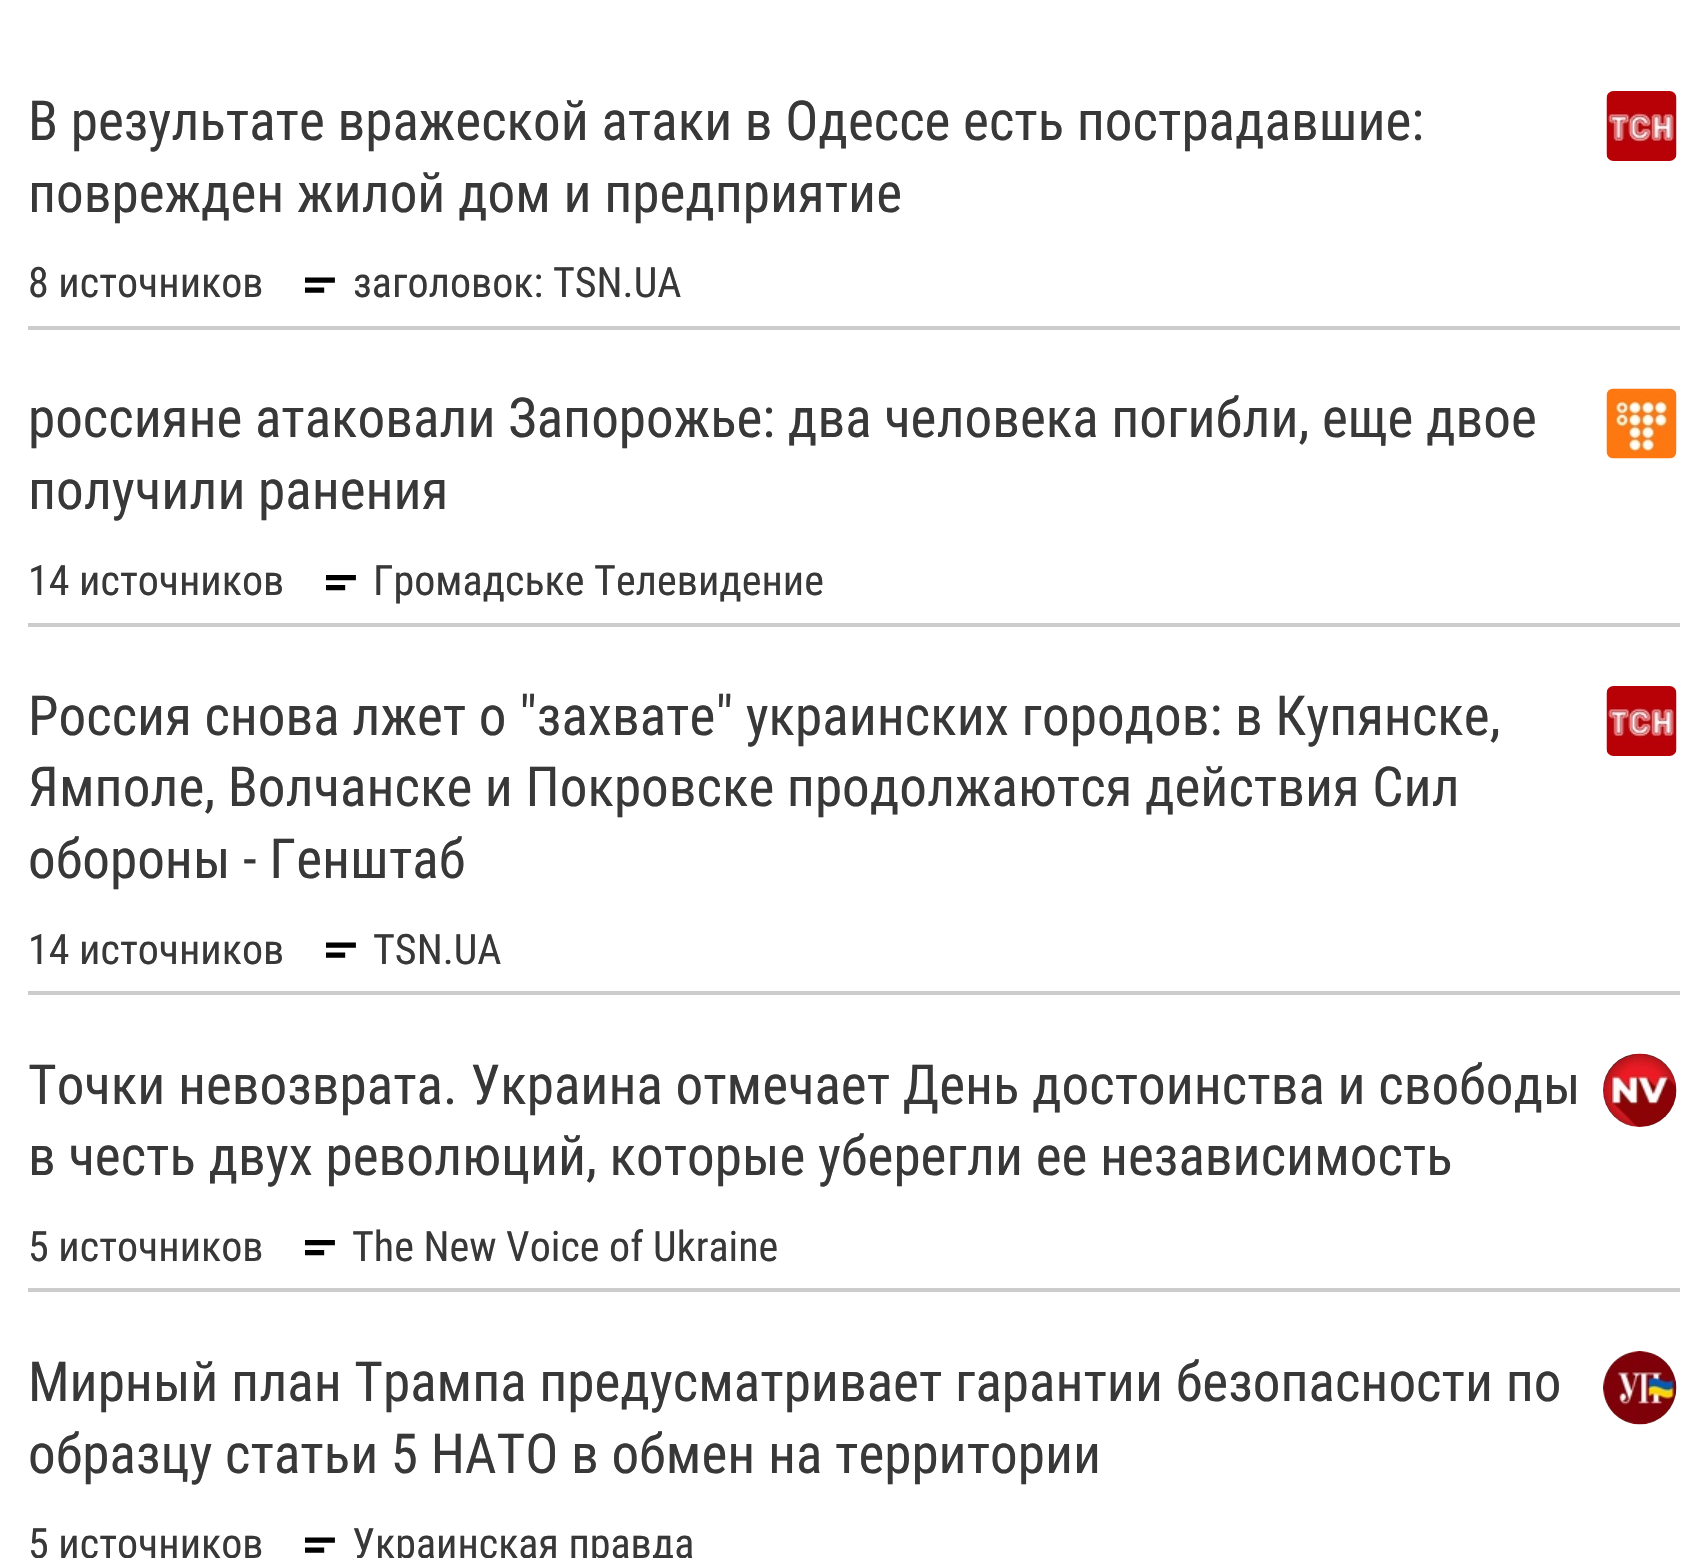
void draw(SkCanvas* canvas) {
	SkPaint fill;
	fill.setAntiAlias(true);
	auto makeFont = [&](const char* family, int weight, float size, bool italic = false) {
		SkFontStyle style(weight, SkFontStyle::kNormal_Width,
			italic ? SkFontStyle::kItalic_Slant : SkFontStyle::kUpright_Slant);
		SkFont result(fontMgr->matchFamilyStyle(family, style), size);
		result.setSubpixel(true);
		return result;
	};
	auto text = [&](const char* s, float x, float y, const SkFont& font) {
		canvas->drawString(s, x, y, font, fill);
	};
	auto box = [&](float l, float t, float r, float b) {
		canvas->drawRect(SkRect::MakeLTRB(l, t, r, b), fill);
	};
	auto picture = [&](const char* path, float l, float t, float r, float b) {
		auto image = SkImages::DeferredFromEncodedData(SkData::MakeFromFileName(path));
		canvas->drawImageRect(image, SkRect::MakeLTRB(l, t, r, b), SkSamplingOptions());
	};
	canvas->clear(0xFFFFFFFF);
	picture("image0.png", 1606, 91, 1677, 161);
	picture("image1.png", 305, 277, 335, 293);
	fill.setColor(0xFFCCCCCC);
	box(28, 326, 1680, 330);
	picture("image2.png", 1606, 388, 1677, 459);
	picture("image3.png", 326, 575, 356, 591);
	box(28, 623, 1680, 627);
	picture("image0.png", 1606, 686, 1677, 756);
	picture("image1.png", 326, 942, 356, 958);
	box(28, 991, 1680, 995);
	picture("image4.png", 1603, 1053, 1677, 1127);
	picture("image3.png", 305, 1240, 335, 1256);
	box(28, 1288, 1680, 1292);
	picture("image5.png", 1603, 1351, 1677, 1425);
	picture("image1.png", 305, 1537, 335, 1553);
	auto font1 = makeFont("Roboto Condensed", 400, 55.1f);
	fill.setColor(0xFF383838);
	text("В результате вражеской атаки в Одессе есть пострадавшие:", 28, 140, font1);
	text("поврежден жилой дом и предприятие", 28, 212, font1);
	auto font2 = makeFont("Roboto Condensed", 400, 42);
	text("8 источников", 28, 297, font2);
	text("заголовок: TSN.UA", 353, 297, font2);
	text("россияне атаковали Запорожье: два человека погибли, еще двое", 28, 437, font1);
	text("получили ранения", 28, 509, font1);
	text("14 источников", 28, 595, font2);
	text("Громадське Телевидение", 373, 595, font2);
	text("Россия снова лжет о \"захвате\" украинских городов: в Купянске,", 28, 735, font1);
	text("Ямполе, Волчанске и Покровске продолжаются действия Сил", 28, 806, font1);
	text("обороны - Генштаб", 28, 878, font1);
	text("14 источников", 28, 964, font2);
	text("TSN.UA", 373, 964, font2);
	text("Точки невозврата. Украина отмечает День достоинства и свободы", 28, 1104, font1);
	text("в честь двух революций, которые уберегли ее независимость", 28, 1175, font1);
	text("5 источников", 28, 1261, font2);
	text("The New Voice of Ukraine", 352, 1261, font2);
	text("Мирный план Трампа предусматривает гарантии безопасности по", 28, 1401, font1);
	text("образцу статьи 5 НАТО в обмен на территории", 28, 1473, font1);
	text("5 источников", 28, 1558, font2);
	text("Украинская правда", 352, 1558, font2);
}
